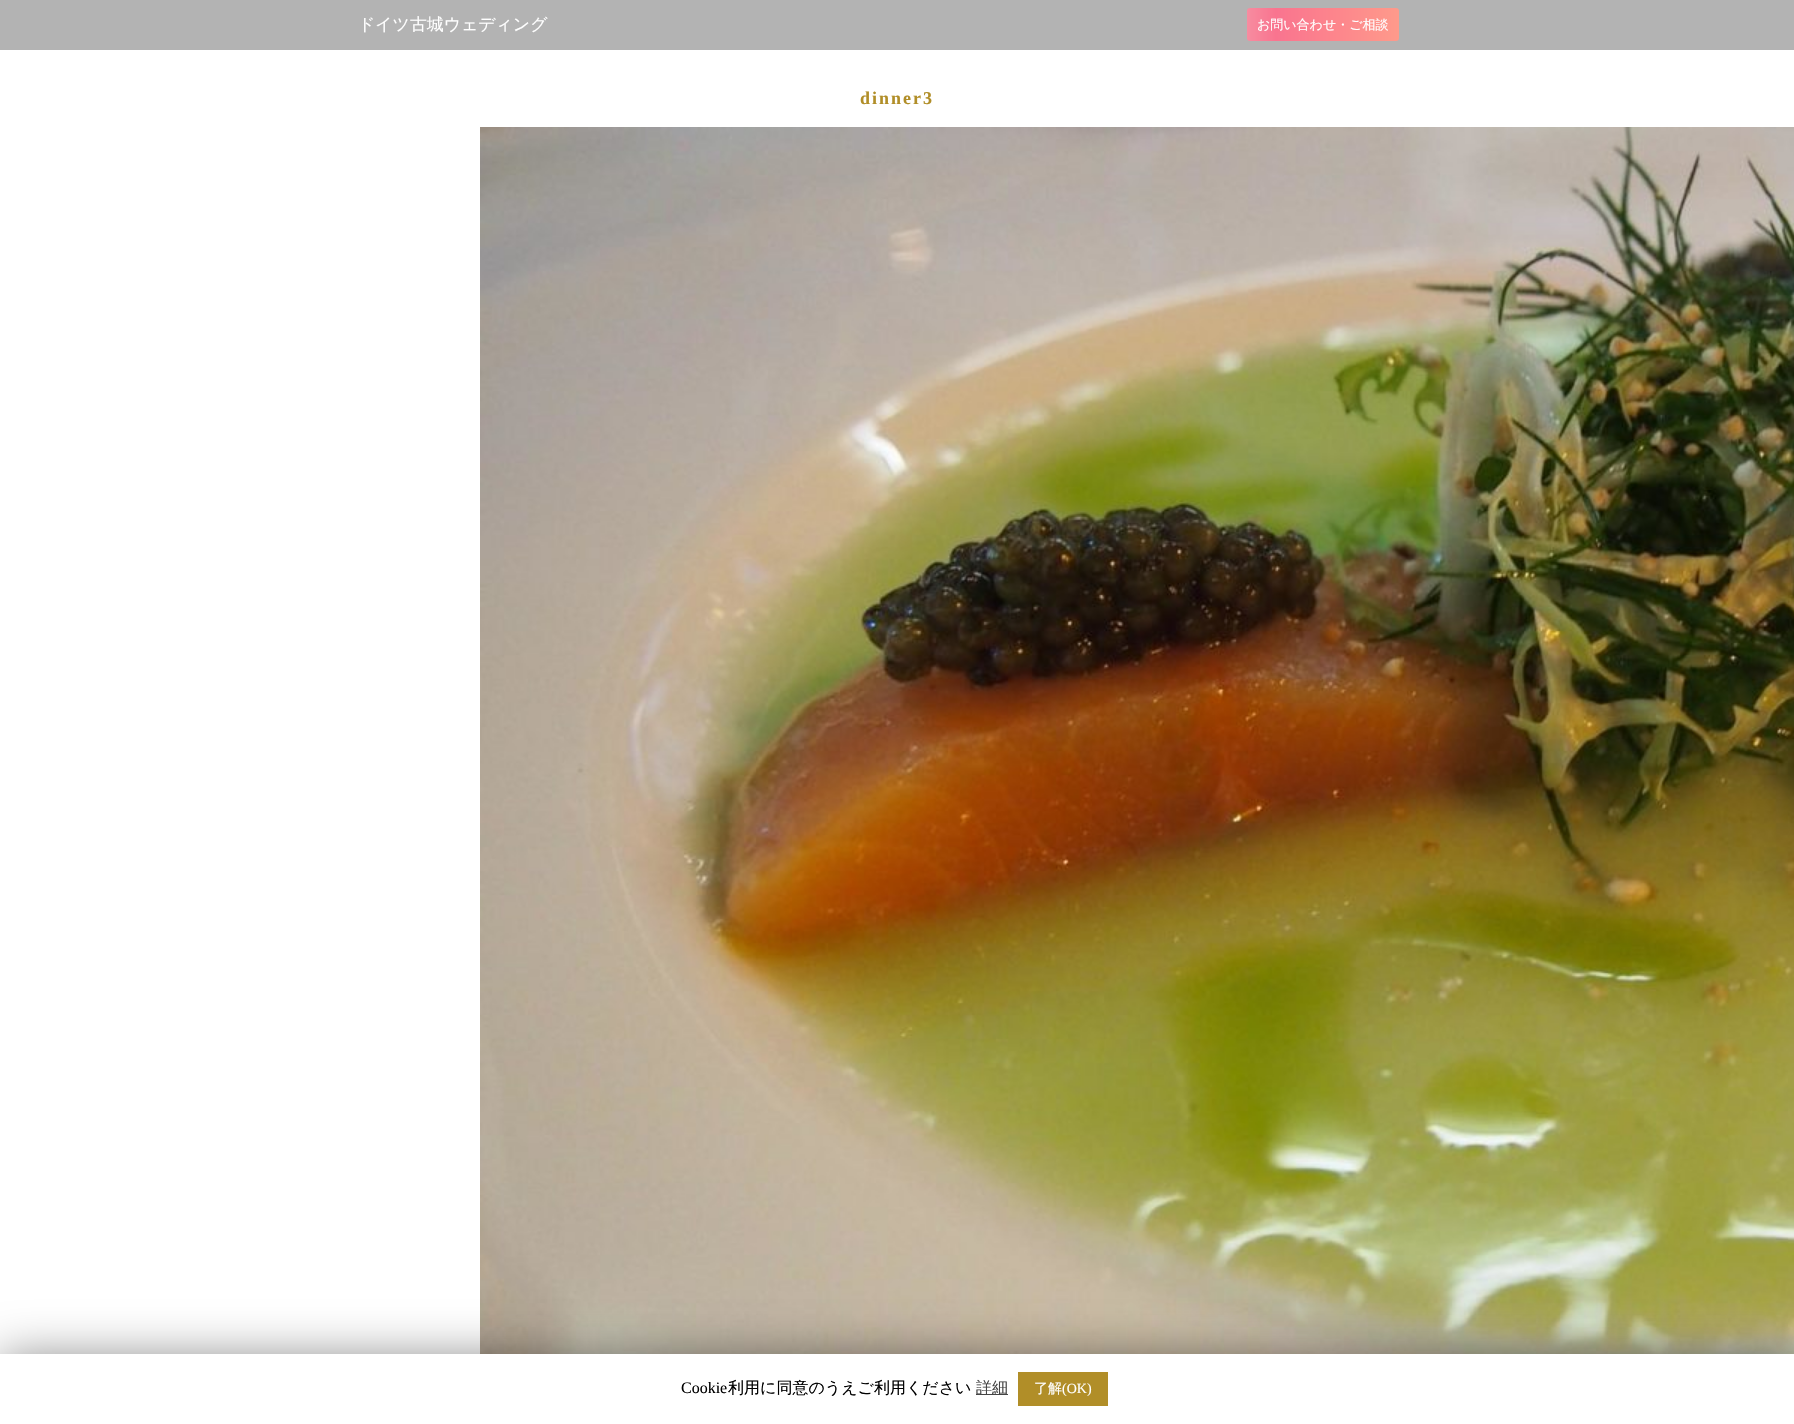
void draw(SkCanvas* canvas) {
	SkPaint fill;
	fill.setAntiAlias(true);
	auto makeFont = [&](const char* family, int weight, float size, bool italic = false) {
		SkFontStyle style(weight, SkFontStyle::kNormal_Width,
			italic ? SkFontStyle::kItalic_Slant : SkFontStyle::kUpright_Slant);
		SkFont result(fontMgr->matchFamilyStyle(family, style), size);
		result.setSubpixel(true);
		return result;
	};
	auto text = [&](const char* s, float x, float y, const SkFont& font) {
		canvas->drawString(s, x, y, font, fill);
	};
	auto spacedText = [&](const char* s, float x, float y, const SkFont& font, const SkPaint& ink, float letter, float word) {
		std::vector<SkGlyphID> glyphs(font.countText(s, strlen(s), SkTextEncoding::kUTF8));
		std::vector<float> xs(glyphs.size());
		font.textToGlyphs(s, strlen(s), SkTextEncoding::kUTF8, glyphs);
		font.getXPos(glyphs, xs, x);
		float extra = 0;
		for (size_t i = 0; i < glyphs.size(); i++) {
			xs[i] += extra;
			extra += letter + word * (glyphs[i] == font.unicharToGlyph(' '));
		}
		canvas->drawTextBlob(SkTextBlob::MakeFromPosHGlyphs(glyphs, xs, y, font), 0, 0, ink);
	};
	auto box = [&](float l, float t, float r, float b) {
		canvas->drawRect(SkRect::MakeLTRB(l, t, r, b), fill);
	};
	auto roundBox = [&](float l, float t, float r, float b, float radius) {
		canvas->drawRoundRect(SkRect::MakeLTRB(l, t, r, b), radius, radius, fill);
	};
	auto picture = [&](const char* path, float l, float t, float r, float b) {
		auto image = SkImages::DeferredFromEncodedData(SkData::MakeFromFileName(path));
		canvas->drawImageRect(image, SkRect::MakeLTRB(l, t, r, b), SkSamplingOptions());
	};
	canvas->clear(0xFFFFFFFF);
	fill.setColor(0xFFB3B3B3);
	box(0, 0, 1794, 50);
	{
		const SkColor colors[] = {0xFFF78CA0, 0xFFF9748F, 0xFFFD868C, 0xFFFE9A8B};
		const float stops[] = {0, 0.19f, 0.6f, 1};
		const SkPoint ends[] = {{1247, 25}, {1399, 25}};
		fill.setShader(SkGradientShader::MakeLinear(ends, colors, stops, 4, SkTileMode::kClamp));
		fill.setAlpha(255);
	}
	roundBox(1247, 8, 1399, 41, 3);
	picture("image0.png", 480, 127, 1794, 1354);
	fill.setShader(nullptr);
	fill.setColor(0x80000000);
	fill.setMaskFilter(SkMaskFilter::MakeBlur(kNormal_SkBlurStyle, 25));
	canvas->drawRect(SkRect::MakeLTRB(0, 1359, 1794, 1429), fill);
	fill.setMaskFilter(nullptr);
	fill.setColor(0xFFFFFFFF);
	box(0, 1354, 1794, 1424);
	fill.setColor(0xFF444444);
	box(976, 1394, 1008, 1395);
	fill.setColor(0xFFB18E28);
	box(1018, 1372, 1108, 1406);
	auto font1 = makeFont("WenQuanYi Zen Hei", 500, 16.9f);
	fill.setColor(0xFFFFFFFF);
	text("ドイツ古城ウェディング", 358, 30, font1);
	auto font2 = makeFont("WenQuanYi Zen Hei", 500, 13);
	text("お問い合わせ・ご相談", 1257, 29, font2);
	auto font3 = makeFont("Liberation Serif", 700, 18);
	fill.setColor(0xFFB18E28);
	spacedText("dinner3", 860, 104, font3, fill, 2, 0);
	auto font4 = makeFont("Liberation Serif", 400, 16);
	fill.setColor(0xFF000000);
	text("Cookie", 681, 1393, font4);
	auto font5 = makeFont("WenQuanYi Zen Hei", 500, 16);
	text("利用に同意のうえご利用ください", 728, 1393, font5);
	fill.setColor(0xFF444444);
	text("詳細", 976, 1393, font5);
	auto font6 = makeFont("WenQuanYi Zen Hei", 500, 14);
	fill.setColor(0xFFFFFFFF);
	text("了解", 1034, 1393, font6);
	auto font7 = makeFont("Liberation Serif", 400, 14);
	text("(OK)", 1062, 1393, font7);
}
